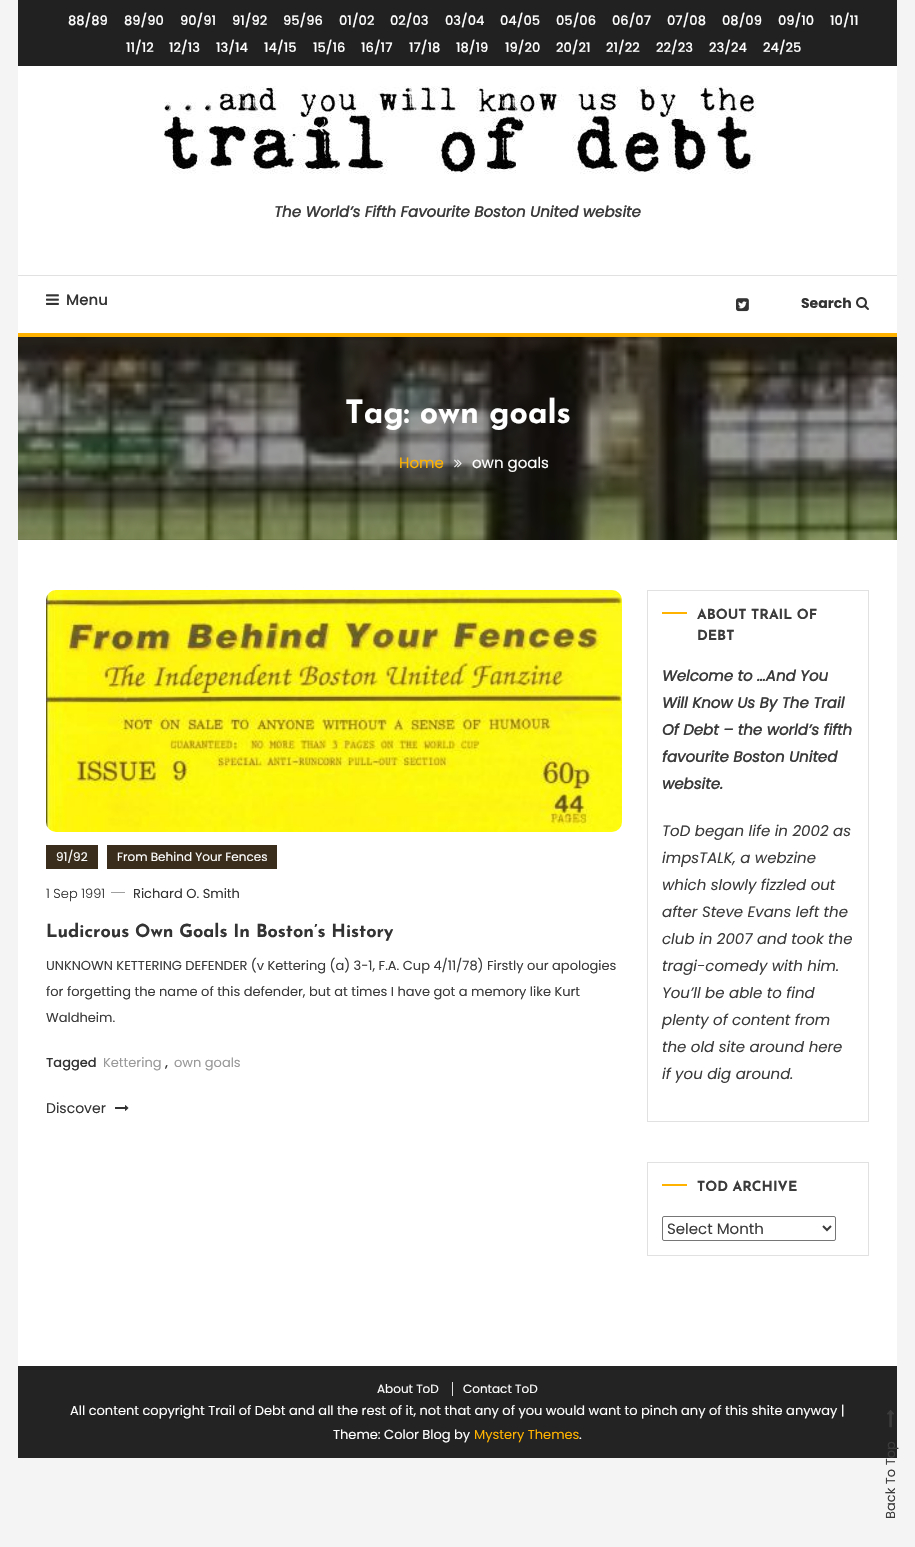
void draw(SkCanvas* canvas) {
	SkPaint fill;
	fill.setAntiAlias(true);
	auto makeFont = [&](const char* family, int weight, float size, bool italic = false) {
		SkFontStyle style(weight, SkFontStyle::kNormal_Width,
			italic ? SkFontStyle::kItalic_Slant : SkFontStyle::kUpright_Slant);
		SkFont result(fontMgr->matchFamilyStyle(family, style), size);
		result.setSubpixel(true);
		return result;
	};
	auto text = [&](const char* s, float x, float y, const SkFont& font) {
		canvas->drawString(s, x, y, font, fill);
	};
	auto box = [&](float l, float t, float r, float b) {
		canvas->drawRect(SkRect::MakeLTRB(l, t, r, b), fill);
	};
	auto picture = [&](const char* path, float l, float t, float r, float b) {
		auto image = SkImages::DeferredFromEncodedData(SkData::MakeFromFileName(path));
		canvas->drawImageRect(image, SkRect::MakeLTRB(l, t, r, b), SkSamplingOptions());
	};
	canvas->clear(0xFFF4F4F4);
	fill.setColor(0xFFFFFFFF);
	box(18, 66, 897, 1366);
	fill.setColor(0xFF212121);
	box(18, 0, 897, 66);
	picture("image0.png", 164, 86, 756, 174);
	fill.setColor(0xFFE1E1E1);
	box(18, 275, 897, 276);
	picture("image1.png", 46, 294, 59, 305);
	picture("image2.png", 736, 298, 749, 312);
	picture("image3.png", 856, 297, 869, 310);
	picture("image4.png", 18, 337, 897, 540);
	fill.setColor(0xFFFFB300);
	box(18, 333, 897, 337);
	picture("image5.png", 454, 459, 462, 468);
	picture("image6.png", 46, 590, 622, 832);
	fill.setColor(0xFF3B2D1B);
	box(46, 845, 98, 869);
	box(107, 845, 277, 869);
	fill.setColor(0xFF9F9F9F);
	box(111, 892, 125, 893);
	picture("image7.png", 115, 1105, 129, 1111);
	fill.setStyle(SkPaint::kStroke_Style);
	fill.setStrokeWidth(1);
	fill.setColor(0xFFE1E1E1);
	canvas->drawRect(SkRect::MakeLTRB(647.5f, 590.5f, 868.5f, 1121.5f), fill);
	fill.setStyle(SkPaint::kFill_Style);
	fill.setColor(0xFFFFB300);
	box(662, 612, 687, 614);
	fill.setStyle(SkPaint::kStroke_Style);
	fill.setColor(0xFFE1E1E1);
	canvas->drawRect(SkRect::MakeLTRB(647.5f, 1162.5f, 868.5f, 1255.5f), fill);
	fill.setStyle(SkPaint::kFill_Style);
	fill.setColor(0xFFFFB300);
	box(662, 1184, 687, 1186);
	fill.setStyle(SkPaint::kStroke_Style);
	fill.setColor(0xFF767676);
	canvas->drawRoundRect(SkRect::MakeLTRB(662.5f, 1216.5f, 835.5f, 1240.5f), 1.5f, 1.5f, fill);
	fill.setStrokeWidth(2);
	fill.setColor(0xFF3B3B3B);
	canvas->drawPath(SkPathBuilder().moveTo(823, 1226).lineTo(827, 1230).lineTo(831, 1226).detach(), fill);
	fill.setStyle(SkPaint::kFill_Style);
	fill.setColor(0xFF232323);
	box(18, 1366, 897, 1458);
	fill.setColor(0xFFE1E1E1);
	box(452, 1382, 453, 1396);
	picture("image8.png", 887, 1410, 894, 1428);
	auto font1 = makeFont("Poppins", 500, 13);
	fill.setColor(0xFFFFFFFF);
	text("88/89", 68, 25, font1);
	text("89/90", 124, 25, font1);
	text("90/91", 180, 25, font1);
	text("91/92", 232, 25, font1);
	text("95/96", 283, 25, font1);
	text("01/02", 339, 25, font1);
	text("02/03", 390, 25, font1);
	text("03/04", 445, 25, font1);
	text("04/05", 500, 25, font1);
	text("05/06", 556, 25, font1);
	text("06/07", 612, 25, font1);
	text("07/08", 667, 25, font1);
	text("08/09", 722, 25, font1);
	text("09/10", 778, 25, font1);
	text("10/11", 830, 25, font1);
	text("11/12", 126, 52, font1);
	text("12/13", 169, 52, font1);
	text("13/14", 216, 52, font1);
	text("14/15", 264, 52, font1);
	text("15/16", 313, 52, font1);
	text("16/17", 361, 52, font1);
	text("17/18", 409, 52, font1);
	text("18/19", 456, 52, font1);
	text("19/20", 505, 52, font1);
	text("20/21", 556, 52, font1);
	text("21/22", 606, 52, font1);
	text("22/23", 656, 52, font1);
	text("23/24", 709, 52, font1);
	text("24/25", 763, 52, font1);
	auto font2 = makeFont("Poppins", 700, 15, true);
	fill.setColor(0xFF3B3B3B);
	text("The World’s Fifth Favourite Boston United website", 274, 217, font2);
	auto font3 = makeFont("Poppins", 500, 15);
	fill.setColor(0xFF333333);
	text("Menu", 66, 305, font3);
	auto font4 = makeFont("Poppins", 700, 14);
	text("Search", 801, 308, font4);
	auto font5 = makeFont("Josefin Sans", 700, 32);
	fill.setColor(0xFFFFFFFF);
	text("Tag: own goals", 345, 423, font5);
	auto font6 = makeFont("Poppins", 400, 15);
	fill.setColor(0xFFFFB300);
	text("Home", 399, 468, font6);
	fill.setColor(0xFFFFFFFF);
	text("own goals", 472, 468, font6);
	auto font7 = makeFont("Poppins", 400, 12);
	text("91/92", 56, 861, font7);
	text("From Behind Your Fences", 117, 861, font7);
	auto font8 = makeFont("Poppins", 300, 13);
	fill.setColor(0xFF333333);
	text("1 Sep 1991", 46, 898, font8);
	auto font9 = makeFont("Poppins", 400, 13);
	text("Richard O. Smith", 133, 898, font9);
	auto font10 = makeFont("Josefin Sans", 700, 18);
	text("Ludicrous Own Goals In Boston’s History", 46, 937, font10);
	fill.setColor(0xFF3B3B3B);
	text("UNKNOWN KETTERING DEFENDER (v Kettering (a) 3-1, F.A. Cup 4/11/78) Firstly our apologies", 46, 970, font9);
	text("for forgetting the name of this defender, but at times I have got a memory like Kurt", 46, 996, font9);
	text("Waldheim.", 46, 1022, font9);
	fill.setColor(0xFF333333);
	text("Tagged", 46, 1067, font1);
	fill.setColor(0xFF999999);
	text("Kettering", 103, 1067, font9);
	fill.setColor(0xFF333333);
	text(",", 165, 1067, font1);
	fill.setColor(0xFF999999);
	text("own goals", 174, 1067, font9);
	auto font11 = makeFont("Poppins", 400, 14);
	fill.setColor(0xFF333333);
	text("Discover", 46, 1113, font11);
	auto font12 = makeFont("Josefin Sans", 700, 14);
	fill.setColor(0xFF3B3B3B);
	text("ABOUT TRAIL OF", 697, 619, font12);
	text("DEBT", 697, 640, font12);
	text("Welcome to …And You", 662, 681, font2);
	text("Will Know Us By The Trail", 662, 708, font2);
	text("Of Debt – the world’s fifth", 662, 735, font2);
	text("favourite Boston United", 662, 762, font2);
	text("website.", 662, 789, font2);
	auto font13 = makeFont("Poppins", 400, 15, true);
	text("ToD began life in 2002 as", 662, 836, font13);
	text("impsTALK, a webzine", 662, 863, font13);
	text("which slowly fizzled out", 662, 890, font13);
	text("after Steve Evans left the", 662, 917, font13);
	text("club in 2007 and took the", 662, 944, font13);
	text("tragi-comedy with him.", 662, 971, font13);
	text("You’ll be able to find", 662, 998, font13);
	text("plenty of content from", 662, 1025, font13);
	text("the old site around here", 662, 1052, font13);
	text("if you dig around.", 662, 1079, font13);
	text("TOD ARCHIVE", 697, 1191, font12);
	text("Select Month", 667, 1234, font6);
	fill.setColor(0xFFFFFFFF);
	text("About ToD", 377, 1393, font7);
	text("Contact ToD", 463, 1393, font7);
	text("All content copyright Trail of Debt and all the rest of it, not that any of you would want to pinch any of this shite anyway |", 70, 1415, font9);
	text("Theme: Color Blog by", 333, 1439, font9);
	fill.setColor(0xFFFFB300);
	text("Mystery Themes", 474, 1439, font9);
	fill.setColor(0xFFFFFFFF);
	text(".", 579, 1439, font9);
	fill.setColor(0xFF3B3B3B);
	canvas->save();
	canvas->rotate(-90, 895, 1519);
	text("Back To Top", 895, 1519, font9);
	canvas->restore();
}
